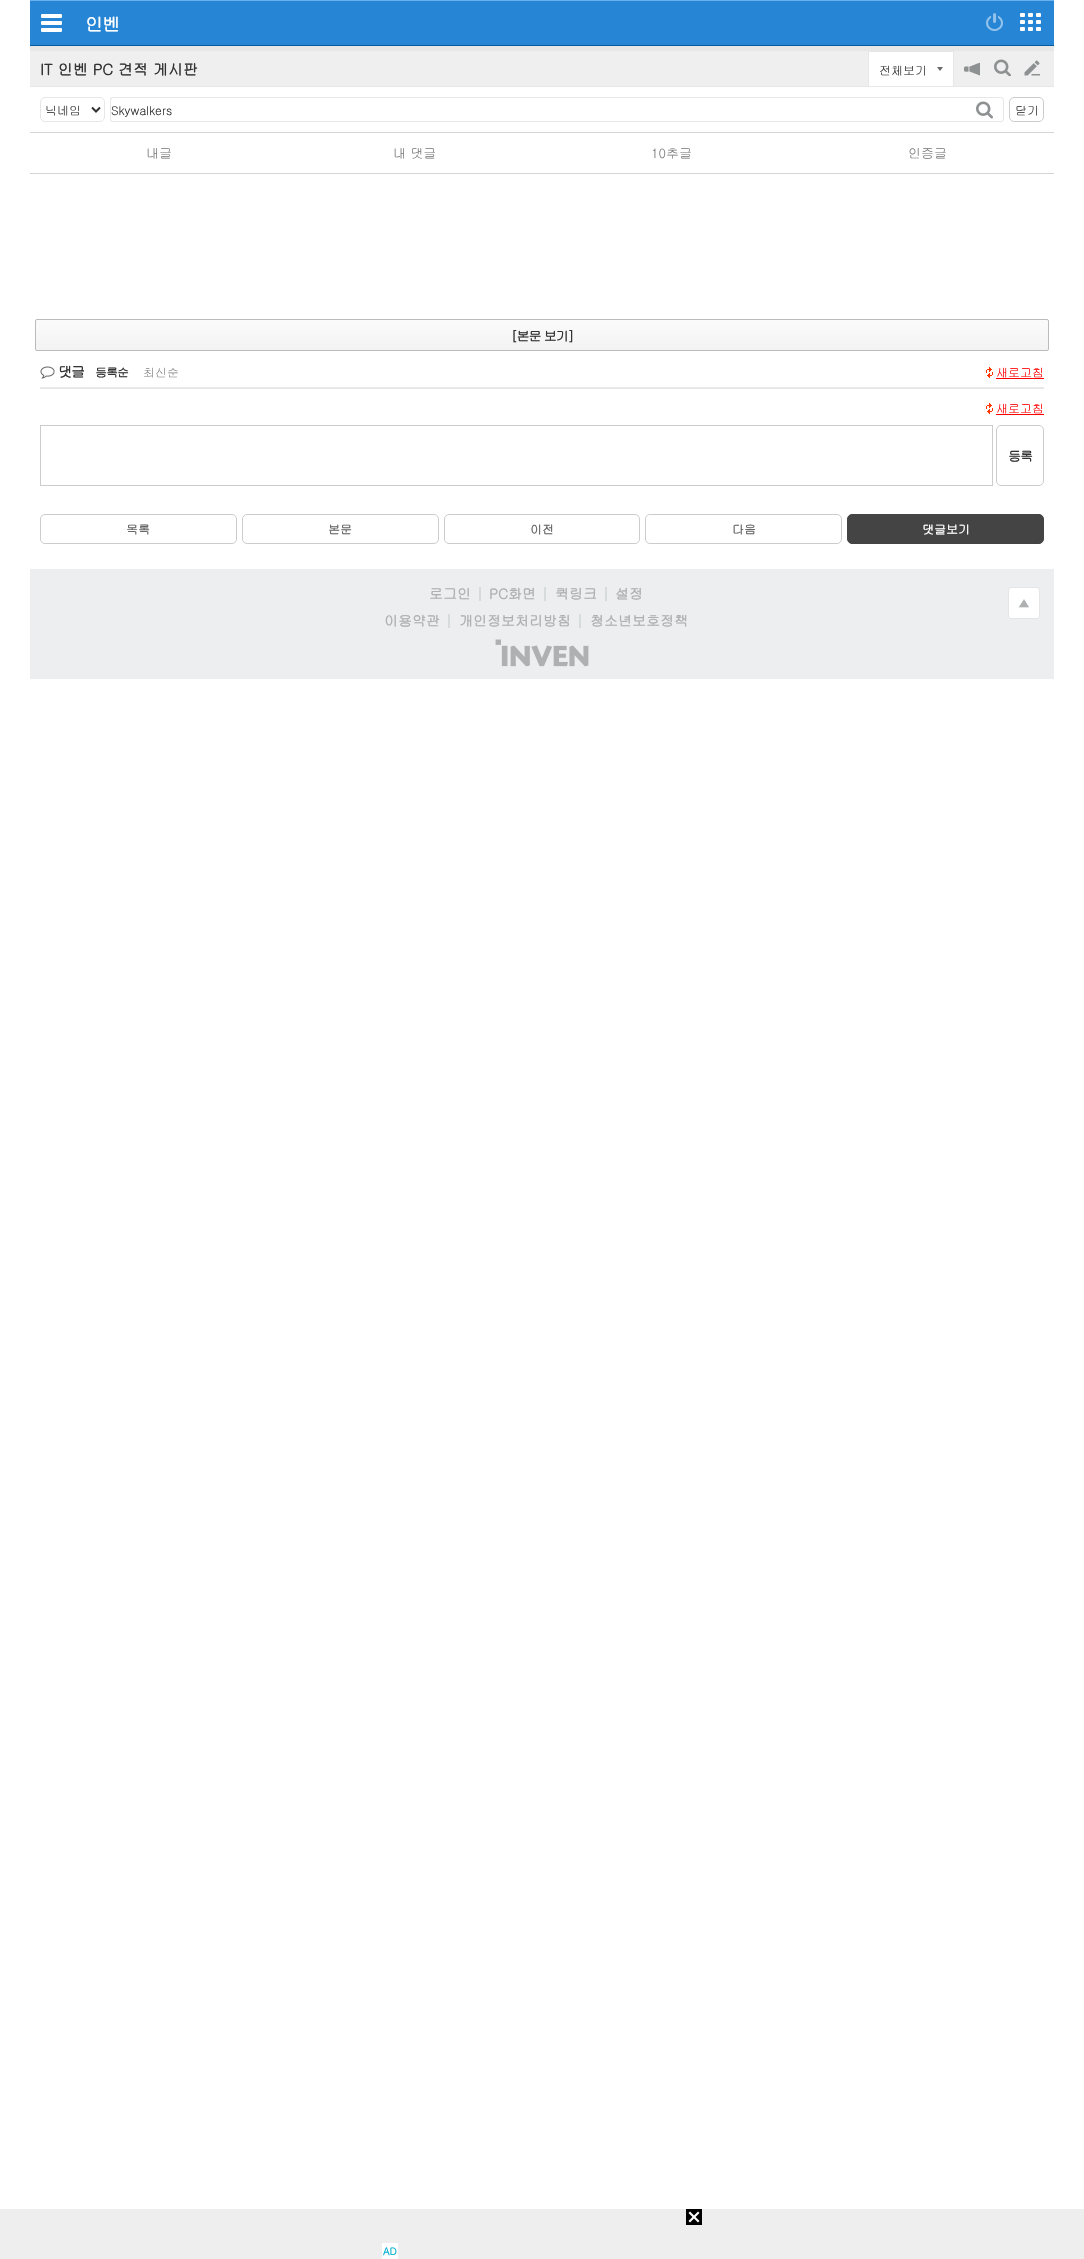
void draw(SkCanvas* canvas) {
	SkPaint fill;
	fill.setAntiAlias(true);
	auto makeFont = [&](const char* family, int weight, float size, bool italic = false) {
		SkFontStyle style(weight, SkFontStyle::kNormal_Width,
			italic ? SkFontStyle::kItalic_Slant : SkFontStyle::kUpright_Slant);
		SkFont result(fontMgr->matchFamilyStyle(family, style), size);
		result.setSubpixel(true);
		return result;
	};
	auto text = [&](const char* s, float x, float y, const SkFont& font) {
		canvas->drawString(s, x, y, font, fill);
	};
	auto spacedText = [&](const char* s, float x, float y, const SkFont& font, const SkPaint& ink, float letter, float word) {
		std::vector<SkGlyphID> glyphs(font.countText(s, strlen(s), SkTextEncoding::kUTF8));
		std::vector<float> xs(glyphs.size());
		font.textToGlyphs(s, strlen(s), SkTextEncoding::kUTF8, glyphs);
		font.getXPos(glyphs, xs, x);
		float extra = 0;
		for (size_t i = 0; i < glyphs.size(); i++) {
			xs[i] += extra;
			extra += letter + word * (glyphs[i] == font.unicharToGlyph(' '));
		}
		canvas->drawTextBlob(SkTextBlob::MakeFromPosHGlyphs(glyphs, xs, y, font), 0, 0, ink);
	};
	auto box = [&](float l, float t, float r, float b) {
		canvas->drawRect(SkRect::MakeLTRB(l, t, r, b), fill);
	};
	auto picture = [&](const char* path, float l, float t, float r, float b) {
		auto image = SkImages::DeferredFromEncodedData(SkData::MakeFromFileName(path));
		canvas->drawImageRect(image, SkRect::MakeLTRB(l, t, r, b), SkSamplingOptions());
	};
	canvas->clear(0xFFFFFFFF);
	fill.setColor(0xFF2685D5);
	box(30, 1, 1054, 45);
	fill.setColor(0xFF6BB1ED);
	box(30, 0, 1054, 1);
	fill.setColor(0xFF08599E);
	box(30, 45, 1054, 46);
	picture("image0.png", 41, 14, 62, 32);
	picture("image1.png", 986, 13, 1003, 31);
	picture("image2.png", 1020, 13, 1041, 31);
	fill.setColor(0xFFEFEFEF);
	box(30, 51, 1054, 86);
	fill.setColor(0xFFE7E7E7);
	box(30, 86, 1054, 87);
	box(30, 46, 1054, 51);
	fill.setColor(0xFFFFFFFF);
	box(869, 52, 953, 86);
	fill.setColor(0xFFE7E7E7);
	box(868, 51, 954, 52);
	box(953, 51, 954, 86);
	box(868, 51, 869, 86);
	fill.setColor(0xFF686868);
	canvas->drawPath(SkPathBuilder().moveTo(937, 67).lineTo(943, 67).lineTo(940, 71).close().detach(), fill);
	picture("image3.png", 964, 62, 980, 76);
	picture("image4.png", 994, 59, 1011, 76);
	picture("image5.png", 1024, 60, 1040, 76);
	fill.setColor(0xFFD5D5D5);
	box(30, 132, 1054, 133);
	fill.setStyle(SkPaint::kStroke_Style);
	fill.setStrokeWidth(1);
	fill.setColor(0xFFE7E7E7);
	canvas->drawRoundRect(SkRect::MakeLTRB(40.5f, 97.5f, 104.5f, 121.5f), 4.5f, 4.5f, fill);
	fill.setStrokeWidth(2);
	fill.setColor(0xFF323232);
	canvas->drawPath(SkPathBuilder().moveTo(92, 107.5f).lineTo(96, 111.5f).lineTo(100, 107.5f).detach(), fill);
	fill.setStyle(SkPaint::kFill_Style);
	fill.setColor(0xFFE7E7E7);
	canvas->drawPath(SkPathBuilder(SkPathFillType::kEvenOdd).moveTo(113, 97).lineTo(969, 97).lineTo(969, 122).lineTo(113, 122).cubicTo(111, 122, 110, 121, 110, 119).lineTo(110, 100).cubicTo(110, 98, 111, 97, 113, 97).close().moveTo(113, 98).lineTo(969, 98).lineTo(969, 121).lineTo(113, 121).cubicTo(112, 121, 111, 120, 111, 119).lineTo(111, 100).cubicTo(111, 99, 112, 98, 113, 98).close().detach(), fill);
	canvas->drawPath(SkPathBuilder(SkPathFillType::kEvenOdd).moveTo(969, 97).lineTo(1001, 97).cubicTo(1002.5f, 97, 1004, 98.5f, 1004, 100).lineTo(1004, 119).cubicTo(1004, 120.5f, 1002.5f, 122, 1001, 122).lineTo(969, 122).close().moveTo(969, 98).lineTo(1001, 98).cubicTo(1002, 98, 1003, 99, 1003, 100).lineTo(1003, 119).cubicTo(1003, 120, 1002, 121, 1001, 121).lineTo(969, 121).close().detach(), fill);
	picture("image6.png", 976, 101, 993, 119);
	fill.setStyle(SkPaint::kStroke_Style);
	fill.setStrokeWidth(1);
	fill.setColor(0xFFCCCCCC);
	canvas->drawRoundRect(SkRect::MakeLTRB(1009.5f, 97.5f, 1043.5f, 121.5f), 4.5f, 4.5f, fill);
	fill.setStyle(SkPaint::kFill_Style);
	fill.setColor(0xFFD5D5D5);
	box(30, 173, 1054, 174);
	canvas->save();
	canvas->clipPath(SkPathBuilder().moveTo(37, 319).lineTo(1047, 319).cubicTo(1048, 319, 1049, 320, 1049, 321).lineTo(1049, 349).cubicTo(1049, 350, 1048, 351, 1047, 351).lineTo(37, 351).cubicTo(36, 351, 35, 350, 35, 349).lineTo(35, 321).cubicTo(35, 320, 36, 319, 37, 319).close().detach(), true);
	{
		const SkColor colors[] = {0xFFFBFBFB, 0xFFF3F3F3};
		const float stops[] = {0, 1};
		const SkPoint ends[] = {{542, 320}, {542, 350}};
		fill.setShader(SkGradientShader::MakeLinear(ends, colors, stops, 2, SkTileMode::kClamp));
		fill.setAlpha(255);
	}
	box(35, 320, 1049, 350);
	canvas->restore();
	fill.setStyle(SkPaint::kStroke_Style);
	fill.setShader(nullptr);
	fill.setColor(0xFFBBBBBB);
	canvas->drawRoundRect(SkRect::MakeLTRB(35.5f, 319.5f, 1048.5f, 350.5f), 1.5f, 1.5f, fill);
	picture("image7.png", 40, 366, 55, 379);
	picture("image8.png", 986, 367, 993, 378);
	fill.setStyle(SkPaint::kFill_Style);
	fill.setColor(0xFFFF0000);
	box(996, 378, 1044, 379);
	fill.setColor(0xFFEAEAEA);
	box(40, 387, 1044, 388);
	fill.setColor(0xFFE5E5E5);
	box(40, 388, 1044, 389);
	picture("image8.png", 986, 403, 993, 414);
	fill.setColor(0xFFFF0000);
	box(996, 414, 1044, 415);
	fill.setStyle(SkPaint::kStroke_Style);
	fill.setColor(0xFFCCCCCC);
	canvas->drawRect(SkRect::MakeLTRB(40.5f, 425.5f, 992.5f, 485.5f), fill);
	canvas->drawRoundRect(SkRect::MakeLTRB(996.5f, 425.5f, 1043.5f, 485.5f), 4.5f, 4.5f, fill);
	canvas->drawRoundRect(SkRect::MakeLTRB(40.5f, 514.5f, 236.5f, 543.5f), 4.5f, 4.5f, fill);
	canvas->drawRoundRect(SkRect::MakeLTRB(242.5f, 514.5f, 438.5f, 543.5f), 4.5f, 4.5f, fill);
	canvas->drawRoundRect(SkRect::MakeLTRB(444.5f, 514.5f, 639.5f, 543.5f), 4.5f, 4.5f, fill);
	canvas->drawRoundRect(SkRect::MakeLTRB(645.5f, 514.5f, 841.5f, 543.5f), 4.5f, 4.5f, fill);
	fill.setStyle(SkPaint::kFill_Style);
	fill.setColor(0xFF444444);
	canvas->drawRoundRect(SkRect::MakeLTRB(847.5f, 514.5f, 1043.5f, 543.5f), 4.5f, 4.5f, fill);
	fill.setStyle(SkPaint::kStroke_Style);
	canvas->drawRoundRect(SkRect::MakeLTRB(847.5f, 514.5f, 1043.5f, 543.5f), 4.5f, 4.5f, fill);
	fill.setStyle(SkPaint::kFill_Style);
	fill.setColor(0xFFEDEEEF);
	box(30, 569, 1054, 679);
	fill.setColor(0xFFD6DBDD);
	box(479, 587, 481, 601);
	box(544, 587, 546, 601);
	box(605, 587, 607, 601);
	box(448, 614, 450, 628);
	box(579, 614, 581, 628);
	picture("image9.png", 495, 639, 589, 667);
	fill.setColor(0xFFFFFFFF);
	canvas->drawRoundRect(SkRect::MakeLTRB(1008.5f, 587.5f, 1039.5f, 618.5f), 2.5f, 2.5f, fill);
	fill.setStyle(SkPaint::kStroke_Style);
	fill.setColor(0xFFE4E5E6);
	canvas->drawRoundRect(SkRect::MakeLTRB(1008.5f, 587.5f, 1039.5f, 618.5f), 2.5f, 2.5f, fill);
	fill.setStyle(SkPaint::kFill_Style);
	fill.setColor(0xFFEEEEEE);
	box(0, 2209, 1084, 2259);
	fill.setColor(0xFF000000);
	box(686, 2209, 702, 2225);
	fill.setColor(0xFFFFFFFF);
	canvas->drawPath(SkPathBuilder().moveTo(688.5f, 2213).lineTo(690, 2211.5f).lineTo(699.5f, 2221).lineTo(698, 2222.5f).close().detach(), fill);
	canvas->drawPath(SkPathBuilder().moveTo(698, 2211.5f).lineTo(699.5f, 2213).lineTo(690, 2222.5f).lineTo(688.5f, 2221).close().detach(), fill);
	box(382, 2243, 398, 2259);
	auto font1 = makeFont("Gulim", 700, 18);
	spacedText("인벤", 85, 31, font1, fill, -1, 0);
	auto font2 = makeFont("Gulim", 700, 15);
	fill.setColor(0xFF323232);
	text("IT 인벤 PC 견적 게시판", 40, 75, font2);
	auto font3 = makeFont("Gulim", 400, 12);
	text("전체보기", 879, 75, font3);
	text("닉네임", 45, 115, font3);
	text("Skywalkers", 111, 115, font3);
	text("닫기", 1015, 115, font3);
	auto font4 = makeFont("Gulim", 400, 13);
	fill.setColor(0xFF7C7C7C);
	text("내글", 146, 158, font4);
	text("내 댓글", 393, 158, font4);
	text("10추글", 651, 158, font4);
	text("인증글", 908, 158, font4);
	auto font5 = makeFont("Gulim", 700, 13);
	fill.setColor(0xFF323232);
	spacedText("[본문 보기]", 511, 341, font5, fill, -1, 0);
	auto font6 = makeFont("Gulim", 700, 14);
	spacedText("댓글", 58, 377, font6, fill, -1, 0);
	auto font7 = makeFont("Gulim", 700, 12);
	spacedText("등록순", 95, 377, font7, fill, -1, 0);
	fill.setColor(0xFF8B8B8B);
	text("최신순", 143, 377, font3);
	fill.setColor(0xFFFF0000);
	text("새로고침", 996, 377, font3);
	text("새로고침", 996, 413, font3);
	fill.setColor(0xFF323232);
	spacedText("등록", 1008, 461, font5, fill, -1, 0);
	fill.setColor(0xFF686868);
	text("목록", 126, 534, font7);
	text("본문", 328, 534, font7);
	text("이전", 530, 534, font7);
	text("다음", 732, 534, font7);
	fill.setColor(0xFFFFFFFF);
	text("댓글보기", 922, 534, font7);
	fill.setColor(0xFFAEB0B1);
	text("로그인", 429, 599, font6);
	text("PC화면", 489, 599, font6);
	text("퀵링크", 555, 599, font6);
	text("설정", 615, 599, font6);
	text("이용약관", 384, 626, font6);
	text("개인정보처리방침", 459, 626, font6);
	text("청소년보호정책", 590, 626, font6);
	text("▲", 1018, 608, font4);
	auto font8 = makeFont("Gulim", 700, 10);
	fill.setColor(0xFF01AECE);
	text("AD", 383, 2255, font8);
}
